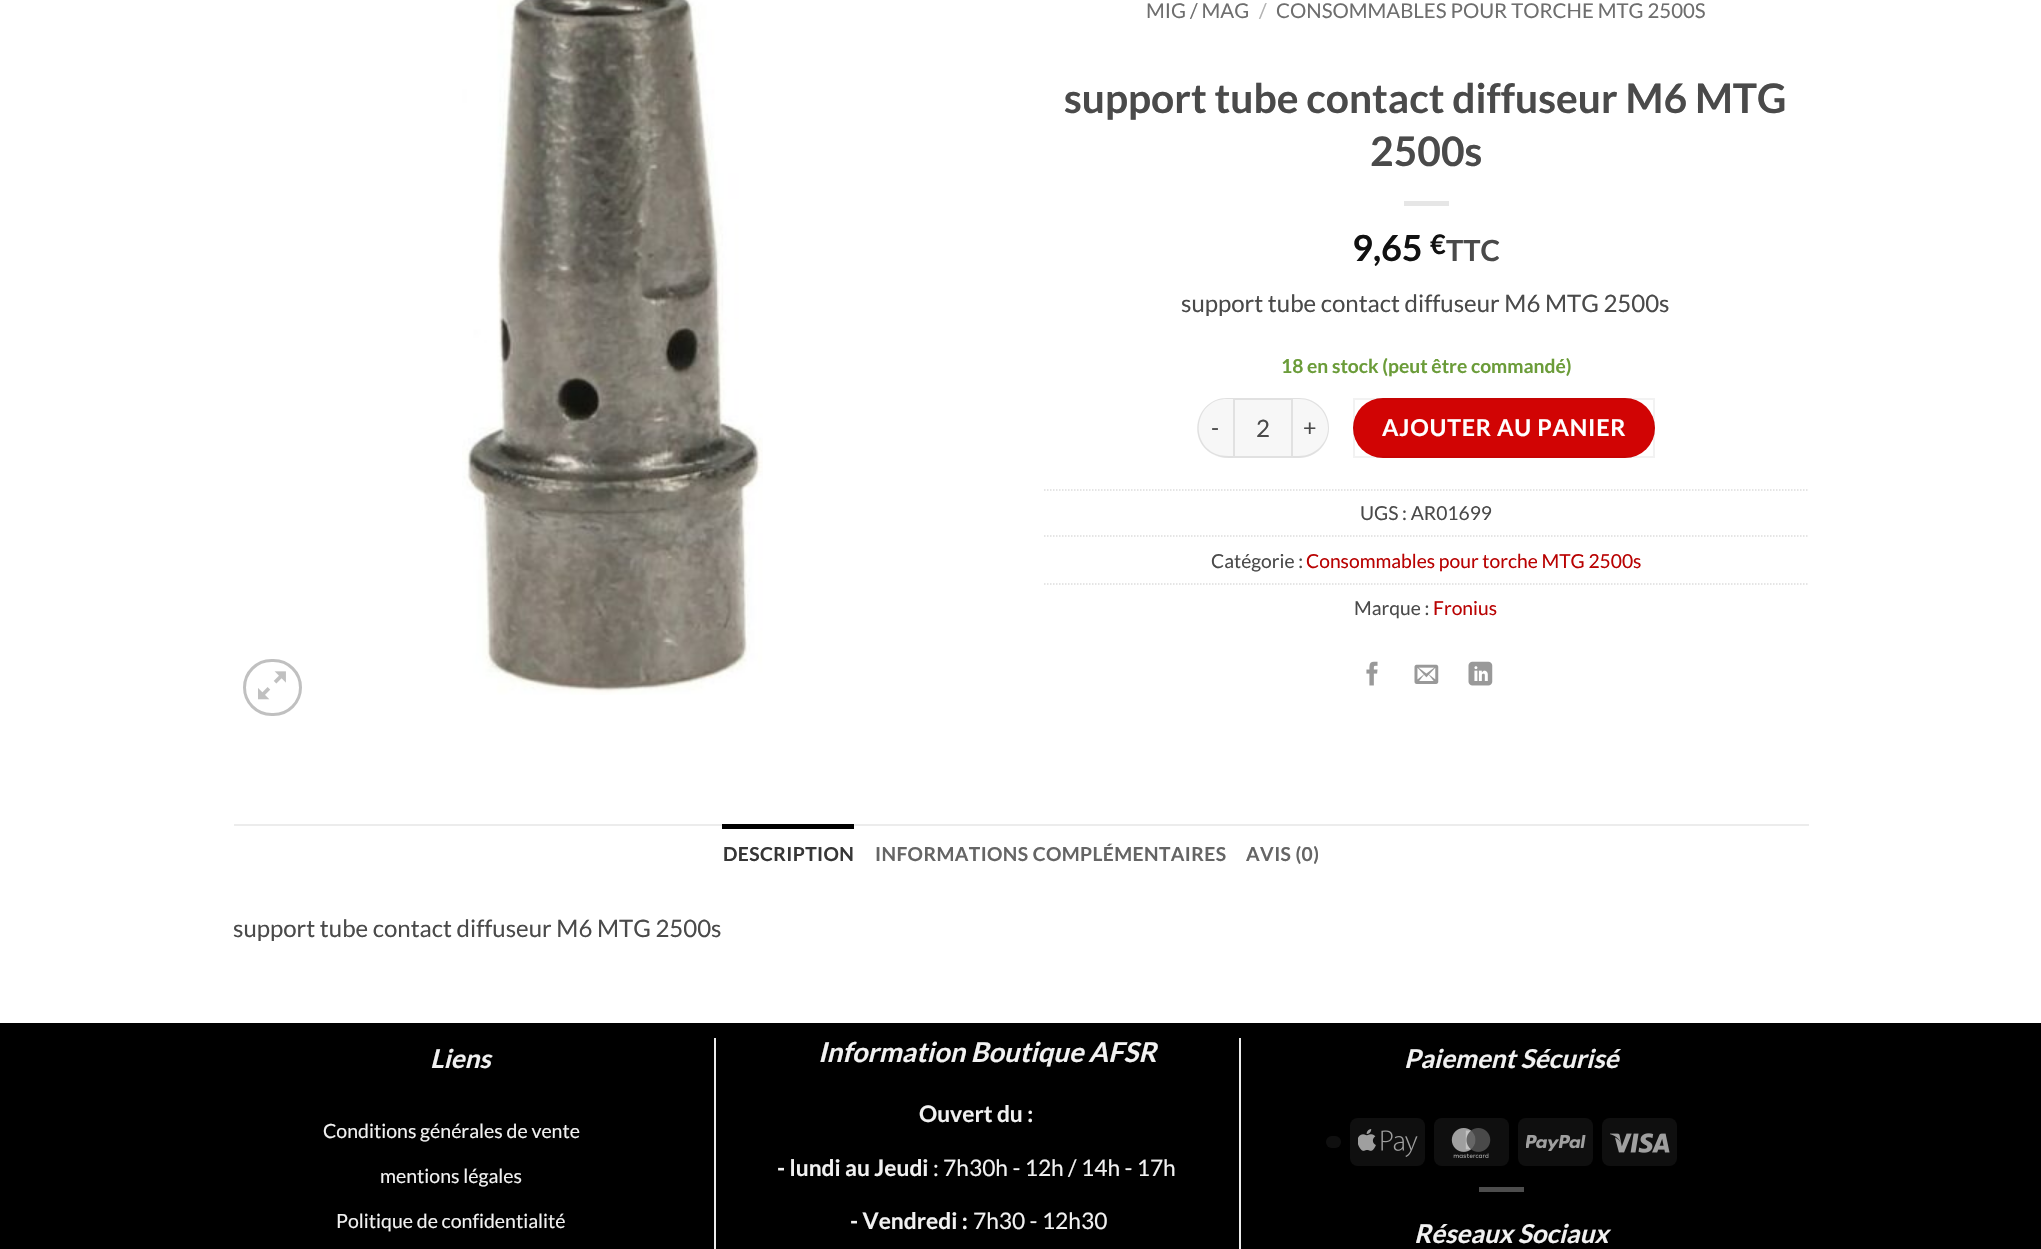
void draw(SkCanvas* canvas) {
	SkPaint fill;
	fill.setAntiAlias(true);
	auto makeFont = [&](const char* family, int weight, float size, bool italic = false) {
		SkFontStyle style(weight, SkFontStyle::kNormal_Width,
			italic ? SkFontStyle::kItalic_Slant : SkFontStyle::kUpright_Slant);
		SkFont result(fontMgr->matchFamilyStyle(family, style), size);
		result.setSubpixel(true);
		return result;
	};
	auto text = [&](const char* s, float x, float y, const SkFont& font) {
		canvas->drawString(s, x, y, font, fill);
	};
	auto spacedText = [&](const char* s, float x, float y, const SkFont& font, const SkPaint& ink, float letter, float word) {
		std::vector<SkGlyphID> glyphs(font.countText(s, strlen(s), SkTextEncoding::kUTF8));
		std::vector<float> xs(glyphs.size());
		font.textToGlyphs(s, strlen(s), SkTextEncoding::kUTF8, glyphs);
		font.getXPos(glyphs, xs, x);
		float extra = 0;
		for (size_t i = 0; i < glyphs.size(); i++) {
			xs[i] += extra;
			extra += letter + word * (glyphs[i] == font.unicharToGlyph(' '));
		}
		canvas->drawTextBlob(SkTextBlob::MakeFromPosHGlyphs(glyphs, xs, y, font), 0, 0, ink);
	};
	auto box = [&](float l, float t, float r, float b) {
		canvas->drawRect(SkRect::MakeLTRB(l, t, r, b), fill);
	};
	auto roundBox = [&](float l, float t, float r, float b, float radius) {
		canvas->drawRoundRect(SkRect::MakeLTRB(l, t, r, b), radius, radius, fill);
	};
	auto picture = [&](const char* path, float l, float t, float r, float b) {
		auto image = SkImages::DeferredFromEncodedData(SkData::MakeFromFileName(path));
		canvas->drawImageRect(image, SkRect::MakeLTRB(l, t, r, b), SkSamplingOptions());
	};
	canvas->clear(0xFFFFFFFF);
	fill.setStyle(SkPaint::kStroke_Style);
	fill.setStrokeWidth(3);
	fill.setColor(0xFFC0C0C0);
	canvas->drawRoundRect(SkRect::MakeLTRB(244.5f, 660.5f, 300.5f, 714.5f), 27, 27, fill);
	picture("image0.png", 258, 671, 286, 700);
	picture("image1.png", 462, 0, 763, 695);
	fill.setStyle(SkPaint::kFill_Style);
	fill.setColor(0xFFE6E6E6);
	box(1404, 201, 1449, 206);
	fill.setColor(0xFFF7F7F7);
	canvas->drawPath(SkPathBuilder().moveTo(1227, 398).lineTo(1233, 398).lineTo(1233, 458).lineTo(1227, 458).cubicTo(1210.5f, 458, 1197, 444.5f, 1197, 428).cubicTo(1197, 411.5f, 1210.5f, 398, 1227, 398).close().detach(), fill);
	fill.setColor(0x17000000);
	canvas->drawPath(SkPathBuilder(SkPathFillType::kEvenOdd).moveTo(1227, 398).lineTo(1233, 398).lineTo(1233, 458).cubicTo(1227, 458, 1221, 458, 1215, 455).cubicTo(1186, 443, 1195, 398, 1227, 398).close().moveTo(1227, 399).lineTo(1233, 399).lineTo(1233, 456).cubicTo(1227, 456, 1221, 456, 1216, 454).cubicTo(1188, 442, 1196, 399, 1227, 399).close().detach(), fill);
	fill.setColor(0xFFF7F7F7);
	canvas->drawRect(SkRect::MakeLTRB(1234, 399, 1292, 457), fill);
	fill.setStyle(SkPaint::kStroke_Style);
	fill.setStrokeWidth(2);
	fill.setColor(0xFFE1E1E1);
	canvas->drawRect(SkRect::MakeLTRB(1234, 399, 1292, 457), fill);
	fill.setStyle(SkPaint::kFill_Style);
	fill.setColor(0xFFF7F7F7);
	canvas->drawPath(SkPathBuilder().moveTo(1293, 398).lineTo(1299, 398).cubicTo(1315.5f, 398, 1329, 411.5f, 1329, 428).cubicTo(1329, 444.5f, 1315.5f, 458, 1299, 458).lineTo(1293, 458).close().detach(), fill);
	fill.setColor(0x17000000);
	canvas->drawPath(SkPathBuilder(SkPathFillType::kEvenOdd).moveTo(1293, 398).lineTo(1299, 398).cubicTo(1316, 398, 1329, 411, 1329, 428).cubicTo(1329, 444, 1316, 458, 1299, 458).lineTo(1293, 458).close().moveTo(1293, 399).lineTo(1299, 399).cubicTo(1315, 399, 1328, 412, 1328, 428).cubicTo(1328, 443, 1315, 456, 1299, 456).lineTo(1293, 456).close().detach(), fill);
	fill.setColor(0xFFD10404);
	roundBox(1353, 398, 1655, 458, 30);
	fill.setStyle(SkPaint::kStroke_Style);
	fill.setColor(0x0D000000);
	canvas->drawRect(SkRect::MakeLTRB(1354, 399, 1654, 457), fill);
	fill.setStrokeWidth(1.5f);
	fill.setColor(0xFFDDDDDD);
	fill.setPathEffect(SkDashPathEffect::Make({{1.5f, 1.5f}}, 0));
	canvas->drawPath(SkPathBuilder().moveTo(1044, 490).lineTo(1809, 490).detach(), fill);
	fill.setPathEffect(nullptr);
	fill.setPathEffect(SkDashPathEffect::Make({{1.5f, 1.5f}}, 0));
	canvas->drawPath(SkPathBuilder().moveTo(1044, 536).lineTo(1809, 536).detach(), fill);
	fill.setPathEffect(nullptr);
	fill.setPathEffect(SkDashPathEffect::Make({{1.5f, 1.5f}}, 0));
	canvas->drawPath(SkPathBuilder().moveTo(1044, 584).lineTo(1809, 584).detach(), fill);
	fill.setPathEffect(nullptr);
	picture("image2.png", 1366, 661, 1378, 686);
	picture("image3.png", 1414, 664, 1439, 684);
	picture("image4.png", 1468, 661, 1493, 686);
	fill.setStyle(SkPaint::kFill_Style);
	fill.setColor(0xFFECECEC);
	box(234, 824, 1809, 826);
	fill.setColor(0xFF000000);
	box(722, 824, 854, 829);
	box(0, 1023, 2041, 1249);
	fill.setColor(0xFFECECEC);
	box(714, 1038, 716, 1249);
	box(1239, 1038, 1241, 1249);
	fill.setColor(0xFF0F0F0F);
	roundBox(1326, 1136, 1341, 1148, 6);
	roundBox(1350, 1118, 1425, 1166, 8);
	picture("image5.png", 1358, 1129, 1418, 1157);
	roundBox(1434, 1118, 1509, 1166, 8);
	picture("image6.png", 1451, 1128, 1491, 1158);
	roundBox(1518, 1118, 1593, 1166, 8);
	picture("image7.png", 1526, 1135, 1586, 1151);
	roundBox(1602, 1118, 1677, 1166, 8);
	picture("image8.png", 1610, 1133, 1670, 1153);
	fill.setColor(0xFF4D4D4D);
	box(1479, 1187, 1524, 1192);
	auto font1 = makeFont("Lato", 400, 20.4f);
	fill.setColor(0xFF6E6E6E);
	text("MIG / MAG", 1146, 18, font1);
	fill.setColor(0xFFB2B2B2);
	text("/", 1259, 18, font1);
	fill.setColor(0xFF6E6E6E);
	text("CONSOMMABLES POUR TORCHE MTG 2500S", 1276, 18, font1);
	auto font2 = makeFont("Lato", 700, 40.75f);
	fill.setColor(0xFF4A4A4A);
	text("support tube contact diffuseur M6 MTG", 1064, 113, font2);
	text("2500s", 1370, 166, font2);
	auto font3 = makeFont("Lato", 700, 36);
	fill.setColor(0xFF111111);
	text("9,65", 1352, 261, font3);
	auto font4 = makeFont("Lato", 700, 27);
	text("€", 1430, 254, font4);
	auto font5 = makeFont("Lato", 700, 29);
	fill.setColor(0xFF4A4A4A);
	text("TTC", 1446, 261, font5);
	auto font6 = makeFont("Lato", 400, 24);
	text("support tube contact diffuseur M6 MTG 2500s", 1181, 312, font6);
	auto font7 = makeFont("Lato", 700, 19.25f);
	fill.setColor(0xFF6B9C39);
	text("18 en stock (peut être commandé)", 1281, 373, font7);
	auto font8 = makeFont("Lato", 400, 23.25f);
	fill.setColor(0xFF4A4A4A);
	spacedText("-", 1211, 436, font8, fill, 0.75f, 0);
	text("2", 1256, 437, font6);
	spacedText("+", 1303, 436, font8, fill, 0.75f, 0);
	auto font9 = makeFont("Lato", 700, 23.25f);
	fill.setColor(0xFFFFFFFF);
	spacedText("AJOUTER AU PANIER", 1382, 436, font9, fill, 0.75f, 0);
	auto font10 = makeFont("Lato", 400, 19.25f);
	fill.setColor(0xFF4A4A4A);
	text("UGS : AR01699", 1360, 520, font10);
	text("Catégorie :", 1211, 568, font10);
	fill.setColor(0xFFB90202);
	text("Consommables pour torche MTG 2500s", 1306, 568, font10);
	fill.setColor(0xFF4A4A4A);
	text("Marque :", 1354, 615, font10);
	fill.setColor(0xFFB90202);
	text("Fronius", 1433, 615, font10);
	fill.setColor(0xFF363636);
	spacedText("DESCRIPTION", 723, 861, font7, fill, 0.4f, 0);
	fill.setColor(0xFF656565);
	spacedText("INFORMATIONS COMPLÉMENTAIRES", 875, 861, font7, fill, 0.4f, 0);
	spacedText("AVIS (0)", 1246, 861, font7, fill, 0.4f, 0);
	fill.setColor(0xFF4A4A4A);
	text("support tube contact diffuseur M6 MTG 2500s", 233, 937, font6);
	auto font11 = makeFont("Lato", 700, 26, true);
	fill.setColor(0xFFF1F1F1);
	text("Liens", 430, 1068, font11);
	auto font12 = makeFont("Lato", 400, 19.5f);
	text("Conditions générales de vente", 323, 1138, font12);
	text("mentions légales", 380, 1183, font12);
	text("Politique de confidentialité", 336, 1228, font12);
	auto font13 = makeFont("Lato", 700, 27.4f, true);
	text("Information Boutique AFSR", 818, 1062, font13);
	auto font14 = makeFont("Lato", 700, 22.75f);
	text("Ouvert du :", 919, 1122, font14);
	text("- lundi au Jeudi", 777, 1176, font14);
	auto font15 = makeFont("Lato", 400, 22.75f);
	text(": 7h30h - 12h / 14h - 17h", 933, 1176, font15);
	text("- Vendredi :", 850, 1229, font14);
	text("7h30 - 12h30", 973, 1229, font15);
	text("Paiement Sécurisé", 1404, 1068, font11);
	text("Réseaux Sociaux", 1414, 1243, font11);
}
